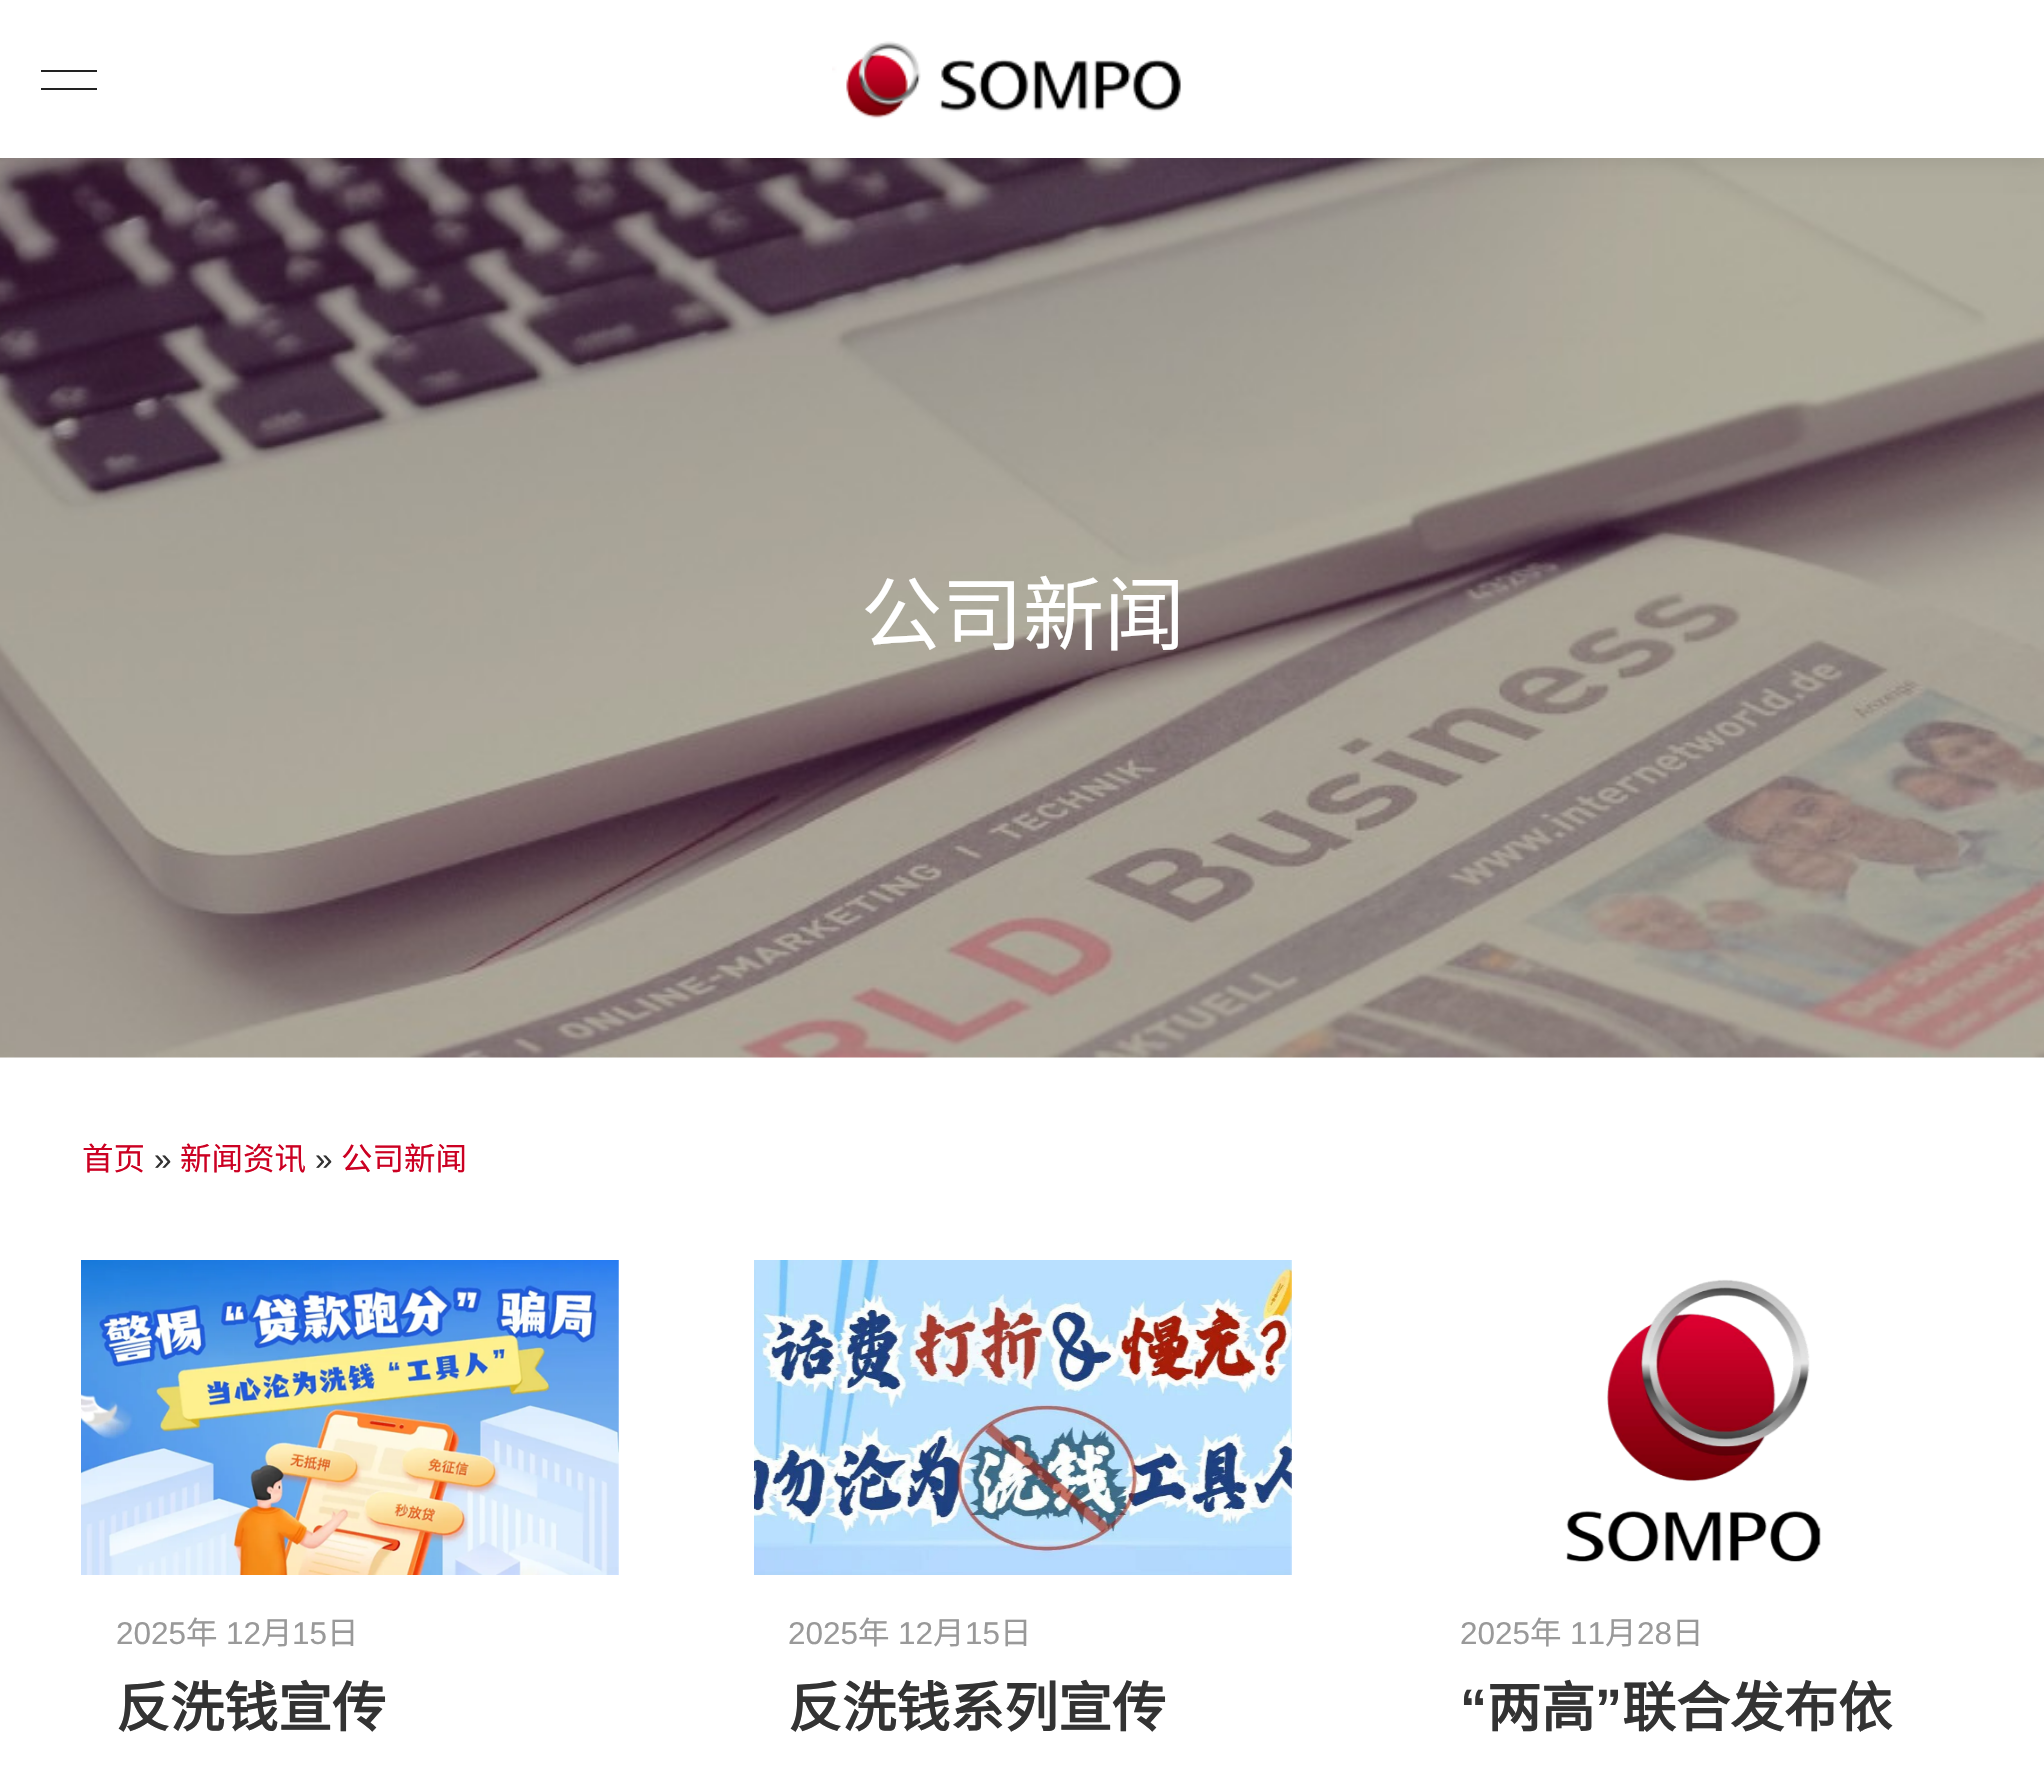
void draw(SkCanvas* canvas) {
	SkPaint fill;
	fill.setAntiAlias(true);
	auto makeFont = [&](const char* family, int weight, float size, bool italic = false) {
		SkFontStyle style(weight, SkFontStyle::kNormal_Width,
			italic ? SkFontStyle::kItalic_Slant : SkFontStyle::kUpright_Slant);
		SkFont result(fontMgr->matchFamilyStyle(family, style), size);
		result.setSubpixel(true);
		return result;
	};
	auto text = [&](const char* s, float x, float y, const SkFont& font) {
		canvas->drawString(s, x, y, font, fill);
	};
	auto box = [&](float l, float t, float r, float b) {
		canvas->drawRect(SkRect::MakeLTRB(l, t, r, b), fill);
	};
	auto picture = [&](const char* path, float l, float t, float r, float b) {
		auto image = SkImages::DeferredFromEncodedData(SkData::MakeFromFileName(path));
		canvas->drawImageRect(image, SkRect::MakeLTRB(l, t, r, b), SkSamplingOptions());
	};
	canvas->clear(0xFFFFFFFF);
	picture("image1.png", 0, 158, 2044, 1058);
	fill.setColor(0x1A000000);
	fill.setMaskFilter(SkMaskFilter::MakeBlur(kNormal_SkBlurStyle, 11));
	canvas->drawRect(SkRect::MakeLTRB(2, 2, 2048, 160), fill);
	fill.setMaskFilter(nullptr);
	fill.setColor(0xFFFFFFFF);
	box(0, 0, 2044, 158);
	fill.setColor(0xFF222222);
	box(41, 70, 97, 72);
	box(41, 88, 97, 90);
	picture("image0.png", 832, 41, 1181, 119);
	picture("image2.png", 81, 1260, 619, 1575);
	picture("image3.png", 754, 1260, 1292, 1575);
	picture("image4.png", 1427, 1260, 1964, 1575);
	auto font1 = makeFont("Noto Sans CJK SC", 400, 81);
	fill.setColor(0xFFFFFFFF);
	text("公司新闻", 861, 644, font1);
	auto font2 = makeFont("Noto Sans CJK SC", 400, 31.5f);
	fill.setColor(0xFFCC0022);
	text("首页", 82, 1170, font2);
	auto font3 = makeFont("Liberation Sans", 400, 31.5f);
	fill.setColor(0xFF333333);
	text("»", 154, 1170, font3);
	fill.setColor(0xFFCC0022);
	text("新闻资讯", 180, 1170, font2);
	fill.setColor(0xFF333333);
	text("»", 315, 1170, font3);
	fill.setColor(0xFFCC0022);
	text("公司新闻", 341, 1170, font2);
	fill.setColor(0xFF999999);
	text("2025", 116, 1644, font3);
	text("年", 186, 1644, font2);
	text("12", 226, 1644, font3);
	text("月", 261, 1644, font2);
	text("15", 292, 1644, font3);
	text("日", 327, 1644, font2);
	auto font4 = makeFont("Noto Sans CJK SC", 700, 54);
	fill.setColor(0xFF333333);
	text("反洗钱宣传", 116, 1727, font4);
	fill.setColor(0xFF999999);
	text("2025", 788, 1644, font3);
	text("年", 858, 1644, font2);
	text("12", 898, 1644, font3);
	text("月", 933, 1644, font2);
	text("15", 965, 1644, font3);
	text("日", 1000, 1644, font2);
	fill.setColor(0xFF333333);
	text("反洗钱系列宣传", 788, 1727, font4);
	fill.setColor(0xFF999999);
	text("2025", 1460, 1644, font3);
	text("年", 1530, 1644, font2);
	text("11", 1570, 1644, font3);
	text("月", 1605, 1644, font2);
	text("28", 1637, 1644, font3);
	text("日", 1672, 1644, font2);
	auto font5 = makeFont("Liberation Sans", 700, 54);
	fill.setColor(0xFF333333);
	text("“", 1460, 1727, font5);
	text("两高", 1487, 1727, font4);
	text("”", 1595, 1727, font5);
	text("联合发布依", 1622, 1727, font4);
}
